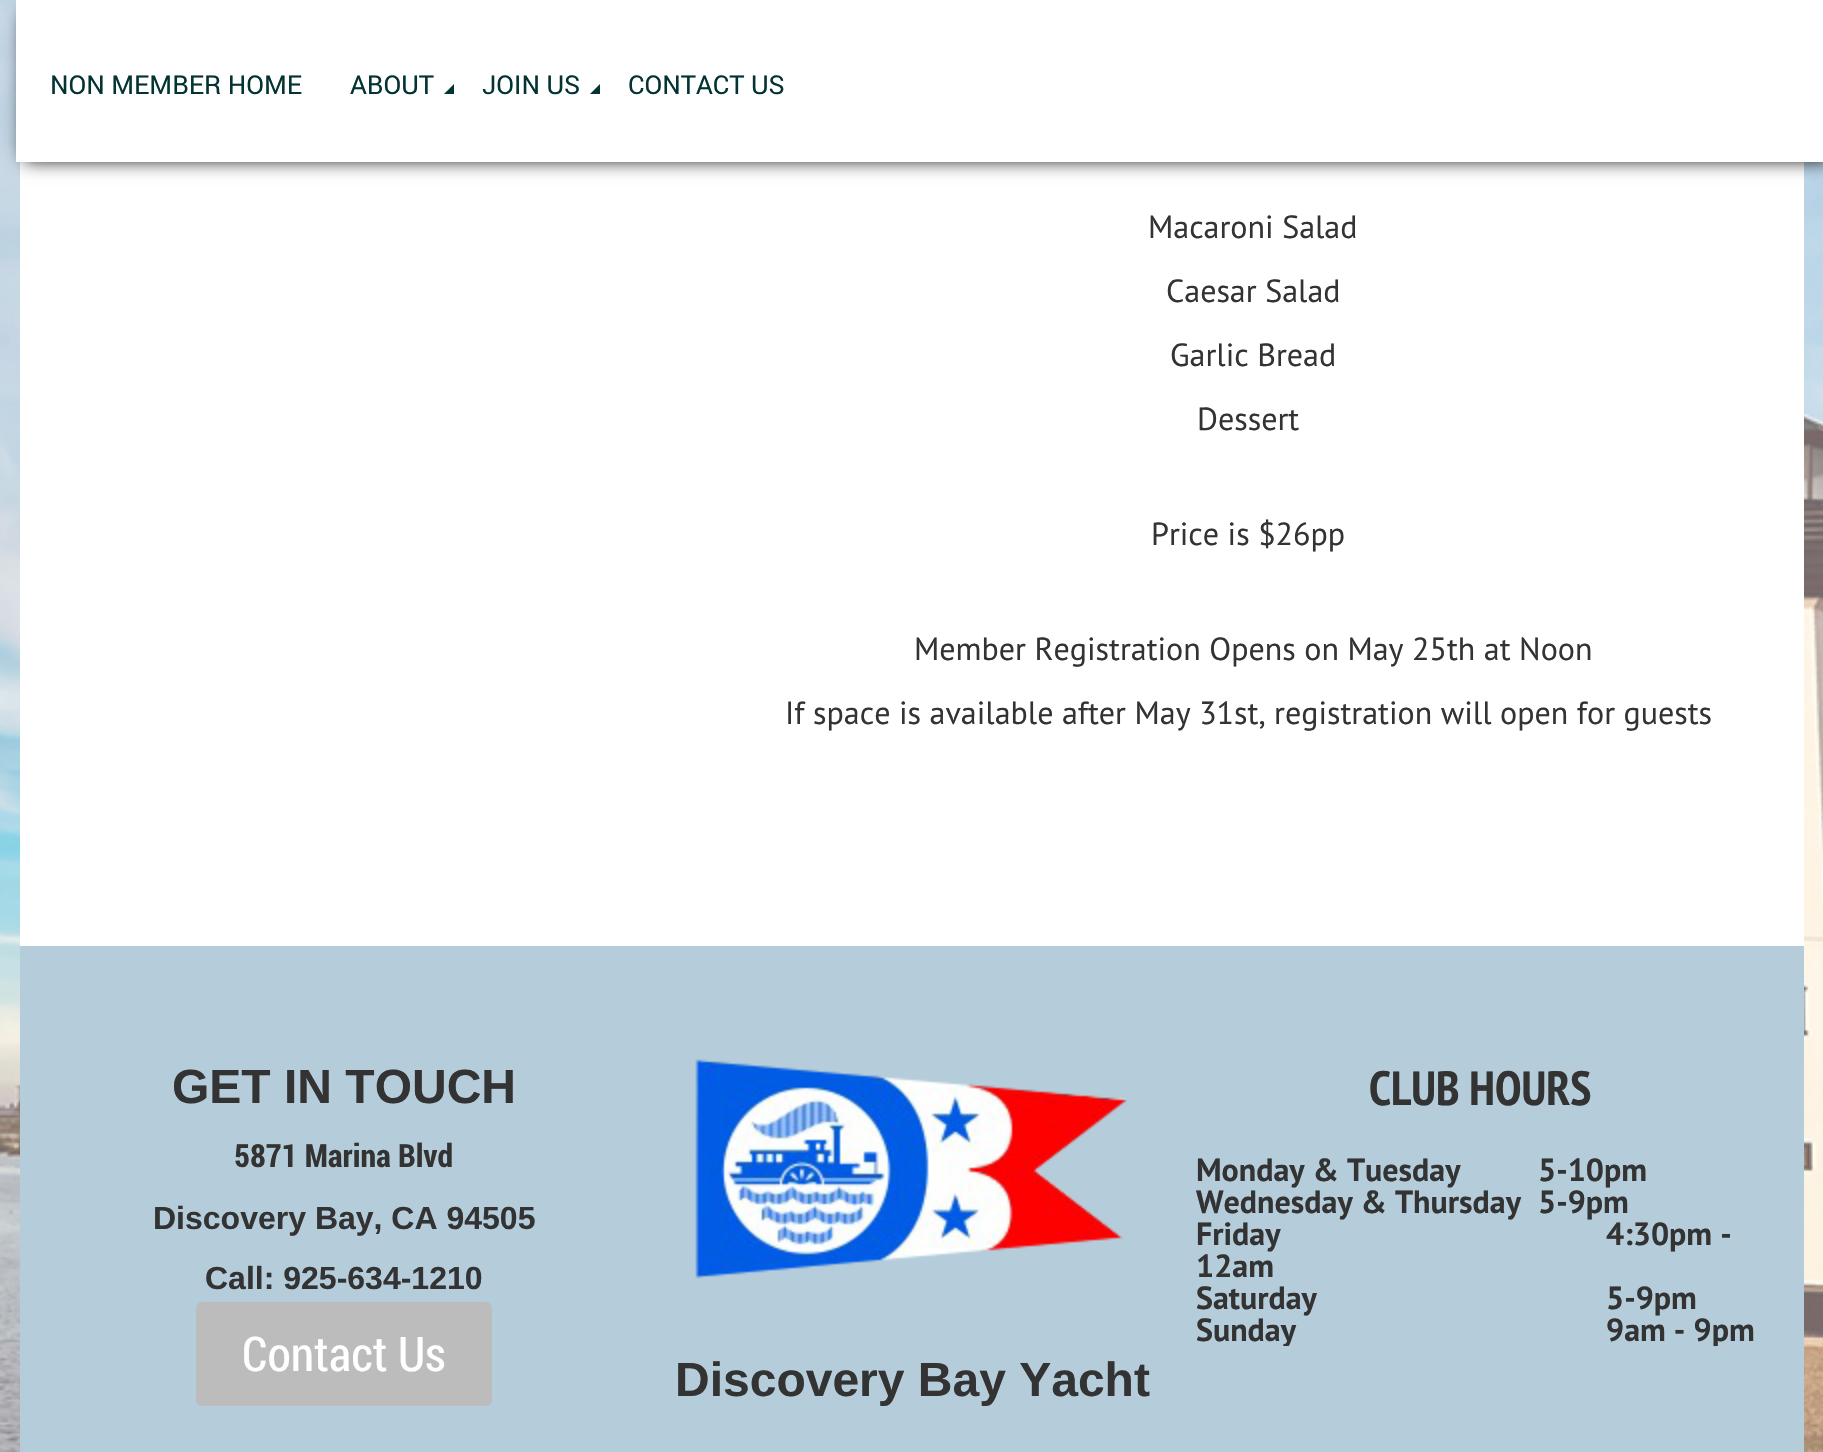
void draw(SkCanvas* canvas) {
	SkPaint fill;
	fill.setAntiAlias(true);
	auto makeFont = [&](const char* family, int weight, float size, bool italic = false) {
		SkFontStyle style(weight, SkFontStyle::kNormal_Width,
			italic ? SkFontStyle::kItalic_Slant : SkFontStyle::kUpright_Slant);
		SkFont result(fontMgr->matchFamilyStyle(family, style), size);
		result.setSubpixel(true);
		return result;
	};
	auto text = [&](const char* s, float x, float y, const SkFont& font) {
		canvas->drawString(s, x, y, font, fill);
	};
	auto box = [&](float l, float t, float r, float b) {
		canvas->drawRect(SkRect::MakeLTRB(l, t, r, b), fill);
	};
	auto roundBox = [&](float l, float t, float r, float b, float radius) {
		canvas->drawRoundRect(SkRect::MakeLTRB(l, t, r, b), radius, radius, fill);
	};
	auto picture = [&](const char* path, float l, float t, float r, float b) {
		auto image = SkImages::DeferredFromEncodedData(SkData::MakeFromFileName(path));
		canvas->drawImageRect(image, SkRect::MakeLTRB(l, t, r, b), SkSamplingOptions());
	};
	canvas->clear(0xFFFFFFFF);
	picture("image0.png", 0, 0, 1823, 1452);
	fill.setColor(0xFFFFFFFF);
	box(20, 162, 1804, 946);
	fill.setColor(0xFF000000);
	fill.setMaskFilter(SkMaskFilter::MakeBlur(kNormal_SkBlurStyle, 9));
	canvas->drawRect(SkRect::MakeLTRB(24, 14, 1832, 160), fill);
	fill.setMaskFilter(nullptr);
	fill.setColor(0xFFFFFFFF);
	box(16, 0, 1823, 162);
	fill.setColor(0xFF033333);
	canvas->drawPath(SkPathBuilder().moveTo(454, 94).lineTo(444, 94).lineTo(454, 84).close().detach(), fill);
	canvas->drawPath(SkPathBuilder().moveTo(600, 94).lineTo(590, 94).lineTo(600, 84).close().detach(), fill);
	fill.setColor(0xFFB5CCDA);
	box(20, 946, 1804, 1452);
	fill.setColor(0xFFBCBCBC);
	roundBox(196, 1302, 492, 1406, 6);
	picture("image1.png", 695, 1059, 1127, 1279);
	auto font1 = makeFont("Roboto", 400, 26);
	fill.setColor(0xFF033333);
	text("NON MEMBER HOME", 50, 94, font1);
	text("ABOUT", 350, 94, font1);
	text("JOIN US", 482, 94, font1);
	text("CONTACT US", 628, 94, font1);
	auto font2 = makeFont("PT Sans", 400, 32);
	fill.setColor(0xFF333333);
	text("Macaroni Salad", 1148, 238, font2);
	text("Caesar Salad", 1166, 302, font2);
	text("Garlic Bread", 1170, 366, font2);
	text("Dessert", 1197, 430, font2);
	text("Price is $26pp", 1151, 545, font2);
	text("Member Registration Opens on May 25th at Noon", 914, 660, font2);
	text("If space is available after May 31st, registration will open for guests", 785, 724, font2);
	auto font3 = makeFont("Liberation Sans", 700, 48);
	text("GET IN TOUCH", 172, 1103, font3);
	auto font4 = makeFont("Roboto Condensed", 700, 32);
	text("5871 Marina Blvd", 234, 1167, font4);
	auto font5 = makeFont("Liberation Sans", 700, 32);
	text("Discovery Bay, CA 94505", 153, 1229, font5);
	text("Call: 925-634-1210", 205, 1289, font5);
	auto font6 = makeFont("Roboto Condensed", 400, 48);
	fill.setColor(0xFFFFFFFF);
	text("Contact Us", 242, 1371, font6);
	auto font7 = makeFont("PT Sans Narrow", 700, 48);
	fill.setColor(0xFF333333);
	text("CLUB HOURS", 1369, 1105, font7);
	auto font8 = makeFont("PT Sans", 700, 32);
	text("Monday & Tuesday", 1196, 1181, font8);
	text("5-10pm", 1538, 1181, font8);
	text("Wednesday & Thursday", 1196, 1213, font8);
	text("5-9pm", 1538, 1213, font8);
	text("Friday", 1196, 1245, font8);
	text("4:30pm -", 1606, 1245, font8);
	text("12am", 1196, 1277, font8);
	text("Saturday", 1196, 1309, font8);
	text("5-9pm", 1606, 1309, font8);
	canvas->save();
	canvas->clipRect(SkRect::MakeLTRB(1196, 1056, 1764, 1346));
	text("Sunday", 1196, 1341, font8);
	text("9am - 9pm", 1606, 1341, font8);
	canvas->restore();
	text("Discovery Bay Yacht", 675, 1396, font3);
}
